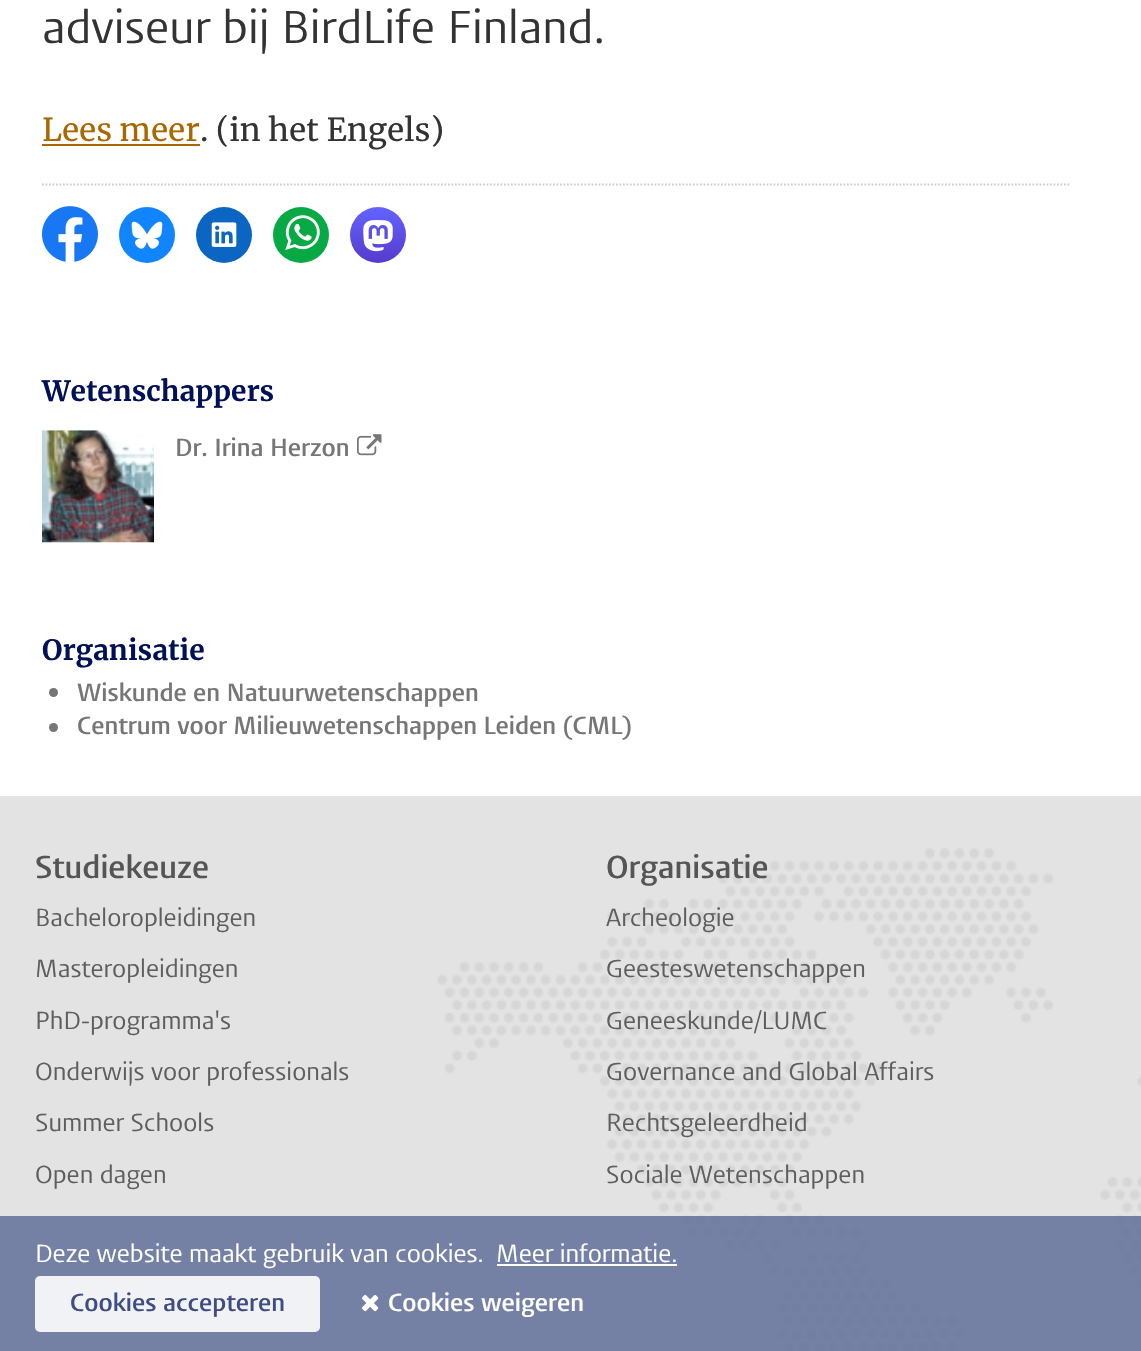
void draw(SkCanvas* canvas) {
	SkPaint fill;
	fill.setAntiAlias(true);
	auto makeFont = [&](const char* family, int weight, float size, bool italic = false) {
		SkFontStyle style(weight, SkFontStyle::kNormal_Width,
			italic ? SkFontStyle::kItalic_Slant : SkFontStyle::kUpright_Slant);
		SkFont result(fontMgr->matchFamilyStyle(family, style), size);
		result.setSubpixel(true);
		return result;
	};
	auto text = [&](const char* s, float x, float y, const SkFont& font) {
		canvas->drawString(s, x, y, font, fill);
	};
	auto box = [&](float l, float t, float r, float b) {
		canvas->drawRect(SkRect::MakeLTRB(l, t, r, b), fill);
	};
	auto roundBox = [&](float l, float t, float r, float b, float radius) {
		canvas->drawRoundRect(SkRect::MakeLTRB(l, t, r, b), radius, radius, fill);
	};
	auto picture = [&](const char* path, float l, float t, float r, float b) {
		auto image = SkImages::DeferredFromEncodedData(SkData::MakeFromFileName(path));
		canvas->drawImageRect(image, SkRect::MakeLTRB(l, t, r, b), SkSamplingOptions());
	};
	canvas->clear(0xFFE3E3E3);
	fill.setColor(0xFFFFFFFF);
	box(0, 0, 1141, 796);
	fill.setColor(0xFFAA6600);
	box(42, 144, 200, 146);
	fill.setStyle(SkPaint::kStroke_Style);
	fill.setStrokeWidth(1.8f);
	fill.setColor(0xFFCCCCCC);
	fill.setPathEffect(SkDashPathEffect::Make({{1.75f, 1.75f}}, 0));
	canvas->drawPath(SkPathBuilder().moveTo(42, 184.5f).lineTo(1071, 184.5f).detach(), fill);
	fill.setPathEffect(nullptr);
	picture("image0.png", 42, 206, 98, 262);
	fill.setStyle(SkPaint::kFill_Style);
	fill.setColor(0xFF1185FE);
	canvas->drawCircle(147, 235, 28, fill);
	picture("image1.png", 131, 221, 163, 249);
	fill.setColor(0xFF0A66C2);
	canvas->drawCircle(224, 235, 28, fill);
	picture("image2.png", 211, 222, 237, 247);
	fill.setColor(0xFF07A944);
	canvas->drawCircle(301, 235, 28, fill);
	picture("image3.png", 285, 215, 320, 250);
	{
		const SkColor colors[] = {0xFF6364FF, 0xFF563ACC};
		const float stops[] = {0, 1};
		const SkPoint ends[] = {{378, 207}, {378, 263}};
		fill.setShader(SkGradientShader::MakeLinear(ends, colors, stops, 2, SkTileMode::kClamp));
		fill.setAlpha(255);
	}
	canvas->drawCircle(378, 235, 28, fill);
	picture("image4.png", 363, 220, 393, 252);
	picture("image5.png", 42, 430, 154, 543);
	picture("image6.png", 357, 434, 382, 456);
	fill.setShader(nullptr);
	fill.setColor(0xFF767676);
	canvas->drawCircle(53.5f, 692.5f, 4.5f, fill);
	canvas->drawCircle(53.5f, 727.5f, 4.5f, fill);
	picture("image7.png", 437, 848, 1141, 1351);
	fill.setColor(0xE668769C);
	box(0, 1216, 1141, 1351);
	fill.setColor(0xFFFFFFFF);
	box(497, 1264, 677, 1266);
	fill.setColor(0xFFF1F2F6);
	roundBox(35, 1276, 320, 1332, 5);
	picture("image8.png", 362, 1295, 379, 1312);
	auto font1 = makeFont("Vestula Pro", 400, 45.5f);
	fill.setColor(0xFF333333);
	text("adviseur bij BirdLife Finland.", 42, 43, font1);
	auto font2 = makeFont("Merriweather", 400, 31.5f);
	fill.setColor(0xFFAA6600);
	text("Lees meer", 42, 141, font2);
	fill.setColor(0xFF333333);
	text(". (in het Engels)", 200, 141, font2);
	auto font3 = makeFont("Merriweather", 700, 28);
	fill.setColor(0xFF001158);
	text("Wetenschappers", 42, 401, font3);
	auto font4 = makeFont("Vestula Pro", 600, 24.5f);
	fill.setColor(0xFF767676);
	text("Dr. Irina Herzon", 175, 456, font4);
	fill.setColor(0xFF001158);
	text("Organisatie", 42, 660, font3);
	fill.setColor(0xFF767676);
	text("Wiskunde en Natuurwetenschappen", 77, 701, font4);
	text("Centrum voor Milieuwetenschappen Leiden (CML)", 77, 734, font4);
	auto font5 = makeFont("Vestula Pro", 600, 31.5f);
	fill.setColor(0xFF555555);
	text("Studiekeuze", 35, 878, font5);
	auto font6 = makeFont("Vestula Pro", 400, 24.5f);
	fill.setColor(0xFF5E5E5E);
	text("Bacheloropleidingen", 35, 926, font6);
	text("Masteropleidingen", 35, 977, font6);
	text("PhD-programma's", 35, 1029, font6);
	text("Onderwijs voor professionals", 35, 1080, font6);
	text("Summer Schools", 35, 1131, font6);
	text("Open dagen", 35, 1183, font6);
	fill.setColor(0xFF555555);
	text("Organisatie", 606, 878, font5);
	fill.setColor(0xFF5E5E5E);
	text("Archeologie", 606, 926, font6);
	text("Geesteswetenschappen", 606, 977, font6);
	text("Geneeskunde/LUMC", 606, 1029, font6);
	text("Governance and Global Affairs", 606, 1080, font6);
	text("Rechtsgeleerdheid", 606, 1131, font6);
	text("Sociale Wetenschappen", 606, 1183, font6);
	fill.setColor(0xFFFFFFFF);
	text("Deze website maakt gebruik van cookies.", 35, 1262, font6);
	text("Meer informatie.", 496, 1262, font6);
	fill.setColor(0xFF404D82);
	text("Cookies accepteren", 70, 1311, font4);
	fill.setColor(0xFFFFFFFF);
	text("Cookies weigeren", 388, 1311, font4);
}
